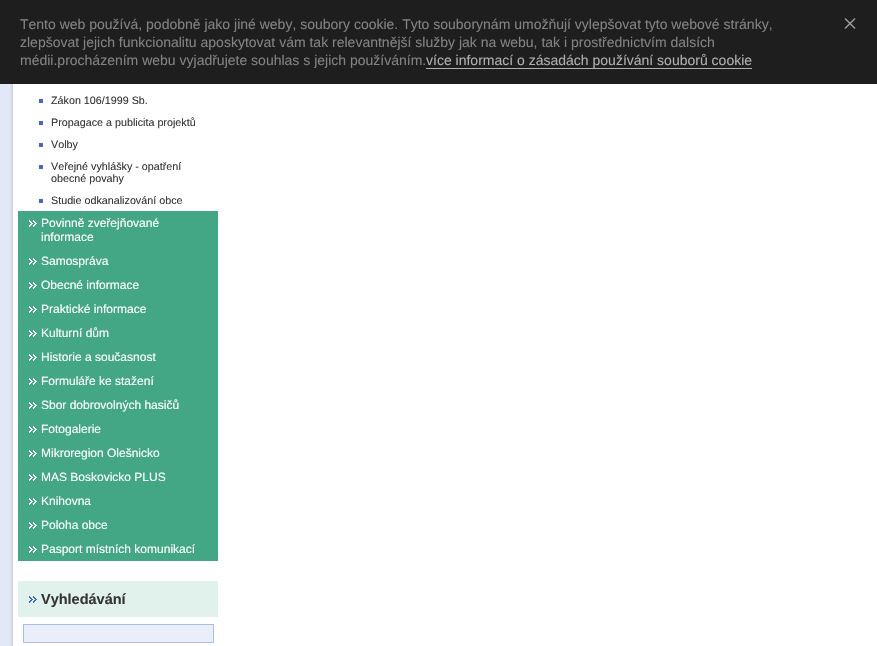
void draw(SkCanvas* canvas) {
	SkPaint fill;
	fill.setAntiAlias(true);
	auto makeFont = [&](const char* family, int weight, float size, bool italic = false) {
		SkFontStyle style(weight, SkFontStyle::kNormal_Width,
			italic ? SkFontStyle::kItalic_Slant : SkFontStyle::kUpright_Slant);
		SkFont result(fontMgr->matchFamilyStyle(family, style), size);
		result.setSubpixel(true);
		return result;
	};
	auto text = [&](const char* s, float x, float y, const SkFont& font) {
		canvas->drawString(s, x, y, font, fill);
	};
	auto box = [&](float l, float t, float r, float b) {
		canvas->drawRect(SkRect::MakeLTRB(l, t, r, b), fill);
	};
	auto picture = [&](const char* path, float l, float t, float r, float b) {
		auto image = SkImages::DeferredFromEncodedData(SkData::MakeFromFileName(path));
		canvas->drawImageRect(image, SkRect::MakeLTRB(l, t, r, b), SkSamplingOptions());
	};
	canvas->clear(0xFFE2E8F7);
	picture("image0.png", 10, 84, 877, 646);
	fill.setColor(0xFF1E1E1E);
	box(0, 0, 877, 84);
	fill.setColor(0xFFAFAFAF);
	box(426, 68, 752, 69);
	fill.setColor(0xFF9E9E9E);
	canvas->drawPath(SkPathBuilder().moveTo(845.5f, 18).lineTo(855.5f, 28).lineTo(854.5f, 29).lineTo(844.5f, 19).close().detach(), fill);
	canvas->drawPath(SkPathBuilder().moveTo(844.5f, 28).lineTo(854.5f, 18).lineTo(855.5f, 19).lineTo(845.5f, 29).close().detach(), fill);
	fill.setColor(0xFF4268C5);
	box(39, 99, 43, 103);
	box(39, 121, 43, 125);
	box(39, 143, 43, 147);
	box(39, 165, 43, 169);
	box(39, 199, 43, 203);
	fill.setColor(0xFF43A785);
	box(18, 211, 218, 561);
	picture("image1.png", 29, 220, 37, 227);
	picture("image1.png", 29, 258, 37, 265);
	picture("image1.png", 29, 282, 37, 289);
	picture("image1.png", 29, 306, 37, 313);
	picture("image1.png", 29, 330, 37, 337);
	picture("image1.png", 29, 354, 37, 361);
	picture("image1.png", 29, 378, 37, 385);
	picture("image1.png", 29, 402, 37, 409);
	picture("image1.png", 29, 426, 37, 433);
	picture("image1.png", 29, 450, 37, 457);
	picture("image1.png", 29, 474, 37, 481);
	picture("image1.png", 29, 498, 37, 505);
	picture("image1.png", 29, 522, 37, 529);
	picture("image1.png", 29, 546, 37, 553);
	fill.setColor(0xFFE1F1EB);
	box(18, 581, 218, 617);
	picture("image2.png", 29, 596, 37, 603);
	fill.setColor(0xFFEAEEF8);
	canvas->drawRect(SkRect::MakeLTRB(23.5f, 624.5f, 213.5f, 642.5f), fill);
	fill.setStyle(SkPaint::kStroke_Style);
	fill.setStrokeWidth(1);
	fill.setColor(0xFFACBDE5);
	canvas->drawRect(SkRect::MakeLTRB(23.5f, 624.5f, 213.5f, 642.5f), fill);
	auto font1 = makeFont("Liberation Sans", 400, 14);
	fill.setStyle(SkPaint::kFill_Style);
	fill.setColor(0xFF828282);
	text("Tento web používá, podobně jako jiné weby, soubory cookie. Tyto souborynám umožňují vylepšovat tyto webové stránky,", 20, 29, font1);
	text("zlepšovat jejich funkcionalitu aposkytovat vám tak relevantnější služby jak na webu, tak i prostřednictvím dalsích", 20, 47, font1);
	text("médii.procházením webu vyjadřujete souhlas s jejich používáním.", 20, 65, font1);
	fill.setColor(0xFFAFAFAF);
	text("více informací o zásadách používání souborů cookie", 426, 65, font1);
	auto font2 = makeFont("Liberation Sans", 400, 10.75f);
	fill.setColor(0xFF353535);
	text("Zákon 106/1999 Sb.", 51, 104, font2);
	text("Propagace a publicita projektů", 51, 126, font2);
	text("Volby", 51, 148, font2);
	text("Veřejné vyhlášky - opatření", 51, 170, font2);
	text("obecné povahy", 51, 182, font2);
	text("Studie odkanalizování obce", 51, 204, font2);
	auto font3 = makeFont("Liberation Sans", 400, 12);
	fill.setColor(0xFFFFFFFF);
	text("Povinně zveřejňované", 41, 227, font3);
	text("informace", 41, 241, font3);
	text("Samospráva", 41, 265, font3);
	text("Obecné informace", 41, 289, font3);
	text("Praktické informace", 41, 313, font3);
	text("Kulturní dům", 41, 337, font3);
	text("Historie a současnost", 41, 361, font3);
	text("Formuláře ke stažení", 41, 385, font3);
	text("Sbor dobrovolných hasičů", 41, 409, font3);
	text("Fotogalerie", 41, 433, font3);
	text("Mikroregion Olešnicko", 41, 457, font3);
	text("MAS Boskovicko PLUS", 41, 481, font3);
	text("Knihovna", 41, 505, font3);
	text("Poloha obce", 41, 529, font3);
	text("Pasport místních komunikací", 41, 553, font3);
	auto font4 = makeFont("Liberation Sans", 700, 14.5f);
	fill.setColor(0xFF353535);
	text("Vyhledávání", 41, 604, font4);
}
